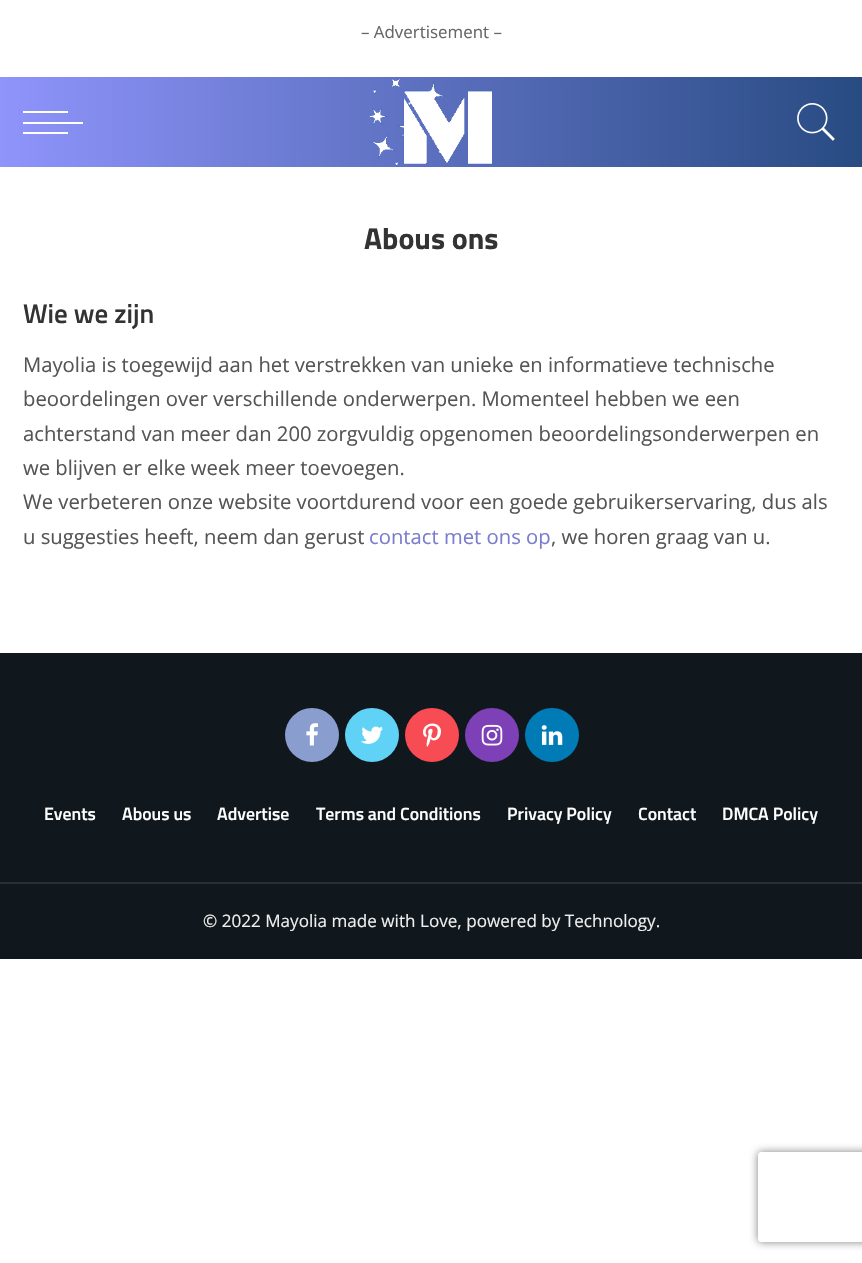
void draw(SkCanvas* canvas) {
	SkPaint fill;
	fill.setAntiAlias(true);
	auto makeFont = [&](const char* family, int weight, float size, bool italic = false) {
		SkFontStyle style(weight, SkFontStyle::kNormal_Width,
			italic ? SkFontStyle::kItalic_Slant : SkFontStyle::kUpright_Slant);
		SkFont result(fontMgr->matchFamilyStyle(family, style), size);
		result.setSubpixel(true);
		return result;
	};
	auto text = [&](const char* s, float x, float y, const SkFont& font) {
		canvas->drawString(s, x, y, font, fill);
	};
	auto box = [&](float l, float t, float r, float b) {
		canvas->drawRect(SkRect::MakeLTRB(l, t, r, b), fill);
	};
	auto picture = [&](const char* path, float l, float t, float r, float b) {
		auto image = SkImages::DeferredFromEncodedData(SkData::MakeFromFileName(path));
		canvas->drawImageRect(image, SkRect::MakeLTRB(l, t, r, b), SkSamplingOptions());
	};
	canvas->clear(0xFFFFFFFF);
	{
		const SkColor colors[] = {0xFF8F94FB, 0xFF284B82};
		const float stops[] = {0, 1};
		const SkPoint ends[] = {{0, 122}, {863, 121}};
		fill.setShader(SkGradientShader::MakeLinear(ends, colors, stops, 2, SkTileMode::kClamp));
		fill.setAlpha(255);
	}
	box(0, 77, 862, 167);
	fill.setShader(nullptr);
	fill.setColor(0xFFFFFFFF);
	box(23, 122, 83, 124);
	box(23, 111, 68, 113);
	box(23, 132, 68, 134);
	picture("image0.png", 369, 78, 492, 166);
	picture("image1.png", 797, 103, 835, 141);
	fill.setColor(0xFF10181E);
	box(0, 653, 862, 959);
	fill.setColor(0xFF899DCE);
	canvas->drawCircle(312, 735, 27, fill);
	picture("image2.png", 306, 723, 318, 746);
	fill.setColor(0xFF60D2F5);
	canvas->drawCircle(372, 735, 27, fill);
	picture("image3.png", 361, 726, 383, 744);
	fill.setColor(0xFFF74C53);
	canvas->drawCircle(432, 735, 27, fill);
	picture("image4.png", 423, 723, 441, 747);
	fill.setColor(0xFF7E40B6);
	canvas->drawCircle(492, 735, 27, fill);
	picture("image5.png", 481, 724, 503, 746);
	fill.setColor(0xFF007BB6);
	canvas->drawCircle(552, 735, 27, fill);
	picture("image6.png", 541, 725, 563, 745);
	fill.setColor(0xFF282F35);
	box(0, 882, 862, 884);
	canvas->save();
	canvas->clipPath(SkPathBuilder(SkPathFillType::kEvenOdd).moveTo(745, 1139).lineTo(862, 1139).lineTo(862, 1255).lineTo(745, 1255).close().moveTo(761, 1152).lineTo(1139, 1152).cubicTo(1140.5f, 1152, 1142, 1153.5f, 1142, 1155).lineTo(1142, 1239).cubicTo(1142, 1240.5f, 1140.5f, 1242, 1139, 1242).lineTo(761, 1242).cubicTo(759.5f, 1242, 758, 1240.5f, 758, 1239).lineTo(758, 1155).cubicTo(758, 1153.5f, 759.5f, 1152, 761, 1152).close().detach(), true);
	fill.setColor(0xFF808080);
	fill.setMaskFilter(SkMaskFilter::MakeBlur(kNormal_SkBlurStyle, 4));
	canvas->drawRoundRect(SkRect::MakeLTRB(758, 1152, 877, 1242), 3, 3, fill);
	fill.setMaskFilter(nullptr);
	canvas->restore();
	auto font1 = makeFont("Open Sans", 400, 16.9f);
	fill.setColor(0xFF666666);
	text("– Advertisement –", 361, 38, font1);
	auto font2 = makeFont("Titillium Web", 700, 30);
	fill.setColor(0xFF333333);
	text("Abous ons", 364, 249, font2);
	auto font3 = makeFont("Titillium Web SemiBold", 600, 27);
	text("Wie we zijn", 23, 323, font3);
	auto font4 = makeFont("Open Sans", 400, 20.25f);
	fill.setColor(0xFF555555);
	text("Mayolia is toegewijd aan het verstrekken van unieke en informatieve technische", 23, 372, font4);
	text("beoordelingen over verschillende onderwerpen. Momenteel hebben we een", 23, 406, font4);
	text("achterstand van meer dan 200 zorgvuldig opgenomen beoordelingsonderwerpen en", 23, 441, font4);
	text("we blijven er elke week meer toevoegen.", 23, 475, font4);
	text("We verbeteren onze website voortdurend voor een goede gebruikerservaring, dus als", 23, 509, font4);
	text("u suggesties heeft, neem dan gerust", 23, 544, font4);
	fill.setColor(0xFF7A7DCE);
	text("contact met ons op", 369, 544, font4);
	fill.setColor(0xFF555555);
	text(", we horen graag van u.", 551, 544, font4);
	auto font5 = makeFont("Titillium Web SemiBold", 600, 17.75f);
	fill.setColor(0xFFFFFFFF);
	text("Events", 44, 820, font5);
	text("Abous us", 122, 820, font5);
	text("Advertise", 217, 820, font5);
	text("Terms and Conditions", 316, 820, font5);
	text("Privacy Policy", 507, 820, font5);
	text("Contact", 638, 820, font5);
	text("DMCA Policy", 722, 820, font5);
	auto font6 = makeFont("Open Sans", 400, 17.1f);
	fill.setColor(0xFFEFEFEF);
	text("© 2022 Mayolia made with Love, powered by Technology.", 203, 927, font6);
}
